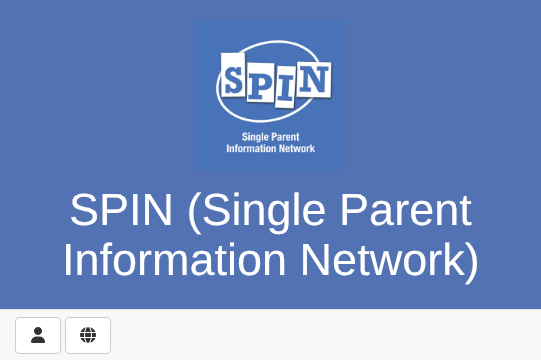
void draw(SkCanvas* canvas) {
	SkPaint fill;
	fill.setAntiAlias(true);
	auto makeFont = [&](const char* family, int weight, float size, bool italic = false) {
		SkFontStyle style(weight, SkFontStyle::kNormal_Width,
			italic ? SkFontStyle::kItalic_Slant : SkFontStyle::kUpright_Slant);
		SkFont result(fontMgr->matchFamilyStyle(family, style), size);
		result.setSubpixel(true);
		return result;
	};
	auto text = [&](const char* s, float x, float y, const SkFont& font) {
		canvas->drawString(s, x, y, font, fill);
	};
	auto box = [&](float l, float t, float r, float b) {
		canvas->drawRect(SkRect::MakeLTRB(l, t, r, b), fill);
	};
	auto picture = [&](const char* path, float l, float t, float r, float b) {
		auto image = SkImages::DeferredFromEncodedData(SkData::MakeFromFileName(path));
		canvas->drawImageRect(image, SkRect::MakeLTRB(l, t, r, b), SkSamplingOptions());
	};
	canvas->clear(0xFF5272B3);
	picture("image0.png", 195, 20, 345, 170);
	fill.setColor(0xFFF8F8F8);
	box(0, 310, 541, 360);
	fill.setColor(0xFFE7E7E7);
	box(0, 309, 541, 310);
	fill.setColor(0xFFFFFFFF);
	canvas->drawRoundRect(SkRect::MakeLTRB(15.5f, 317.5f, 60.5f, 353.5f), 3.5f, 3.5f, fill);
	fill.setStyle(SkPaint::kStroke_Style);
	fill.setStrokeWidth(1);
	fill.setColor(0xFFCCCCCC);
	canvas->drawRoundRect(SkRect::MakeLTRB(15.5f, 317.5f, 60.5f, 353.5f), 3.5f, 3.5f, fill);
	picture("image1.png", 31, 327, 45, 343);
	fill.setStyle(SkPaint::kFill_Style);
	fill.setColor(0xFFFFFFFF);
	canvas->drawRoundRect(SkRect::MakeLTRB(65.5f, 317.5f, 110.5f, 353.5f), 3.5f, 3.5f, fill);
	fill.setStyle(SkPaint::kStroke_Style);
	fill.setColor(0xFFCCCCCC);
	canvas->drawRoundRect(SkRect::MakeLTRB(65.5f, 317.5f, 110.5f, 353.5f), 3.5f, 3.5f, fill);
	picture("image2.png", 80, 327, 96, 343);
	auto font1 = makeFont("Liberation Sans", 400, 45);
	fill.setStyle(SkPaint::kFill_Style);
	fill.setColor(0xFFFFFFFF);
	text("SPIN (Single Parent", 69, 225, font1);
	text("Information Network)", 62, 275, font1);
}
